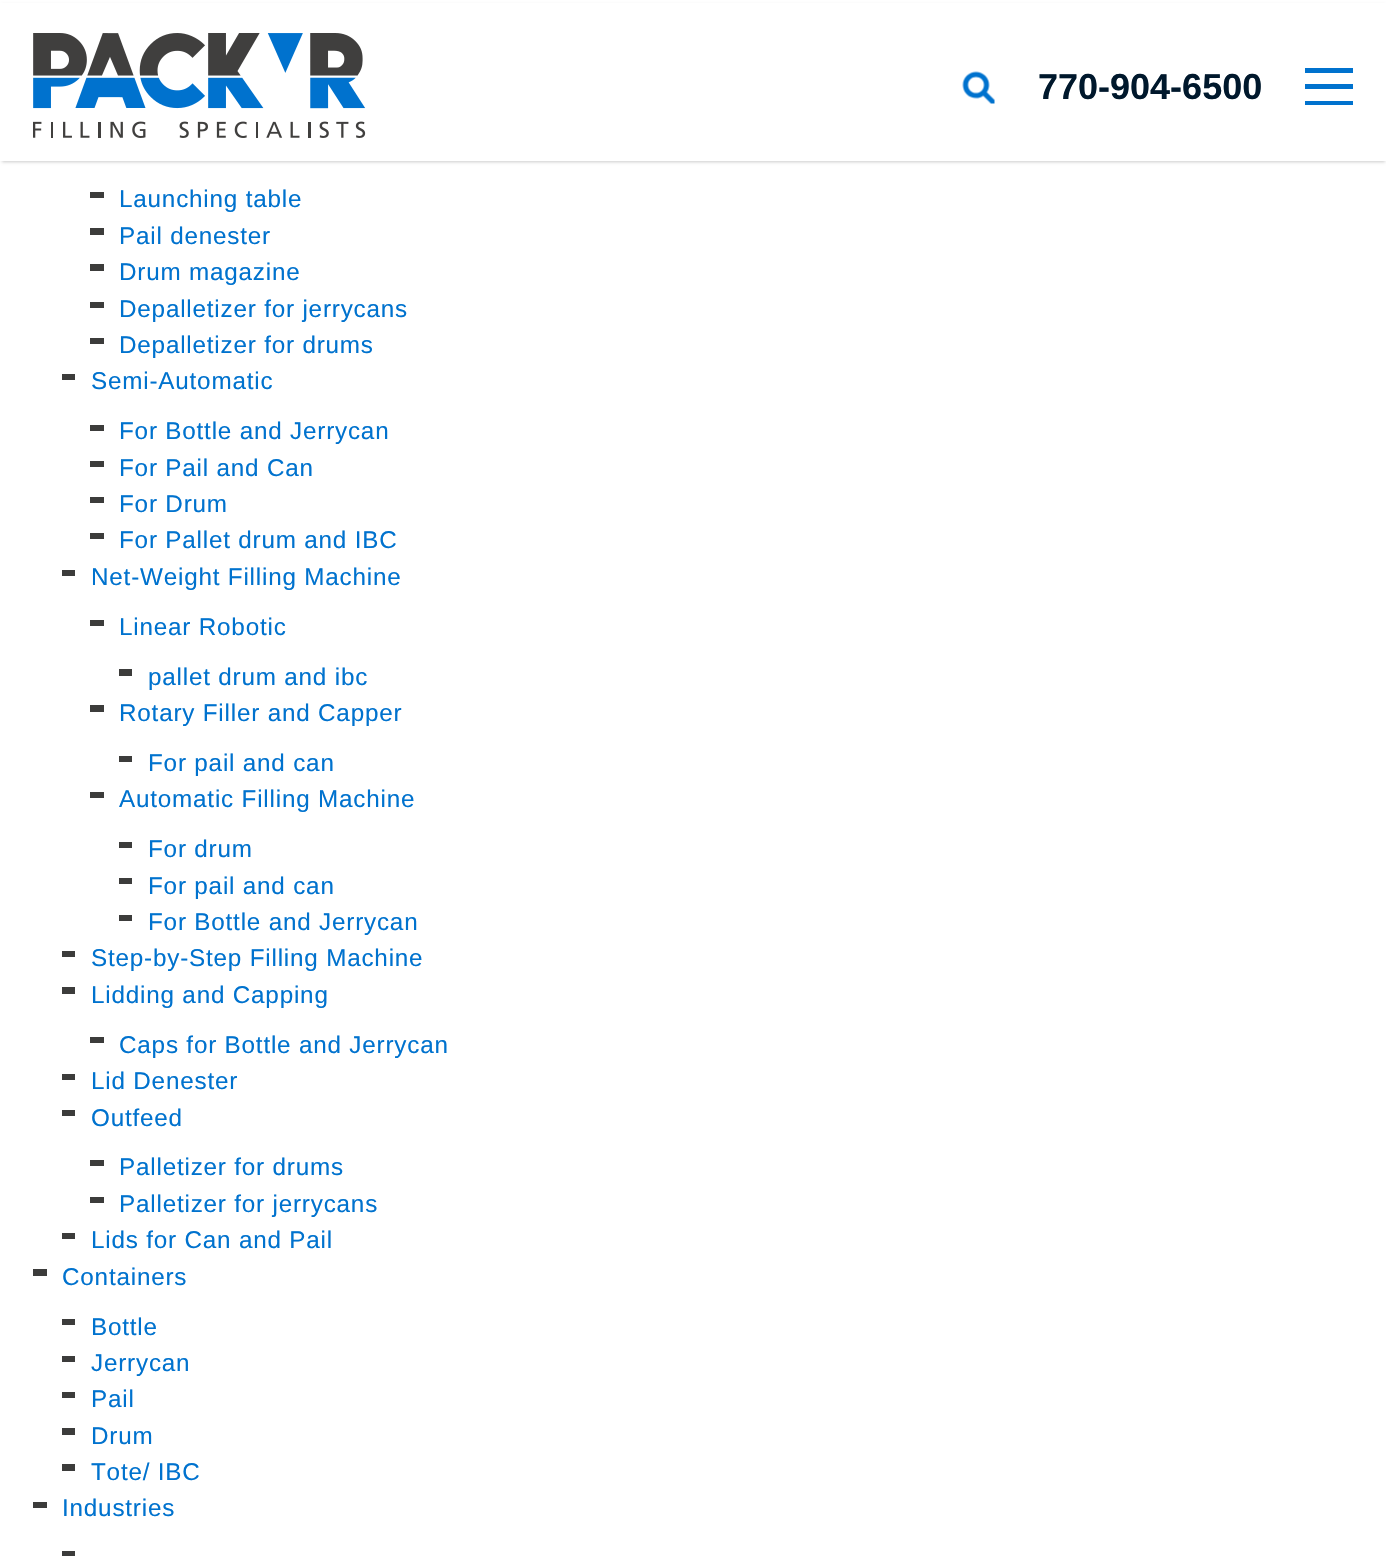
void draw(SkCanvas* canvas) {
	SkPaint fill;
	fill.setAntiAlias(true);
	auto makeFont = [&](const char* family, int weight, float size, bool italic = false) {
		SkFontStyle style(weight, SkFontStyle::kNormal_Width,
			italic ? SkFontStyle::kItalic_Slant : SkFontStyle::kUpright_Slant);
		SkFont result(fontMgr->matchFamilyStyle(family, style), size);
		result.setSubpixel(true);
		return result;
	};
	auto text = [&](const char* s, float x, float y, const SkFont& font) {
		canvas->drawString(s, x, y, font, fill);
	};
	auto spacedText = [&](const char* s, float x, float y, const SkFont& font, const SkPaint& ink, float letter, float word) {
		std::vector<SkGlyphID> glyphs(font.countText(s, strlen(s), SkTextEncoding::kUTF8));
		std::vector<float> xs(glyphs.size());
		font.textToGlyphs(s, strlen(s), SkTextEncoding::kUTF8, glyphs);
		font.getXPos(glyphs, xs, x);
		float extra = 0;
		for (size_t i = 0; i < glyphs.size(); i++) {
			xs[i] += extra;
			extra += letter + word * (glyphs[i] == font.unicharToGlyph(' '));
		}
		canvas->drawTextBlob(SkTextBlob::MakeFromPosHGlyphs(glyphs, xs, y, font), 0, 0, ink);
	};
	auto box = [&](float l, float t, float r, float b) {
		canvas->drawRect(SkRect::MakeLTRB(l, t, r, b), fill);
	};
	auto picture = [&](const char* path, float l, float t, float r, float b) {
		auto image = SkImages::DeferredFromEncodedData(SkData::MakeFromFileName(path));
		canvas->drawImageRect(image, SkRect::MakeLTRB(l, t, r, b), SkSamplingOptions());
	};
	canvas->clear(0xFFFFFFFF);
	fill.setColor(0x33000000);
	fill.setMaskFilter(SkMaskFilter::MakeBlur(kNormal_SkBlurStyle, 1.5f));
	canvas->drawRect(SkRect::MakeLTRB(2, 5, 1385, 162), fill);
	fill.setMaskFilter(nullptr);
	fill.setColor(0xFFFFFFFF);
	box(0, 3, 1386, 161);
	picture("image0.png", 33, 33, 366, 138);
	picture("image1.png", 962, 71, 995, 104);
	fill.setColor(0xFF0072CE);
	box(1305, 68, 1353, 73);
	box(1305, 84, 1353, 89);
	box(1305, 101, 1353, 105);
	fill.setColor(0xFF3C3C3B);
	box(90, 192, 104, 198);
	box(90, 228, 104, 235);
	box(90, 264, 104, 271);
	box(90, 302, 104, 308);
	box(90, 338, 104, 344);
	box(62, 374, 75, 380);
	box(90, 425, 104, 431);
	box(90, 461, 104, 467);
	box(90, 497, 104, 503);
	box(90, 533, 104, 539);
	box(62, 570, 75, 576);
	box(90, 620, 104, 626);
	box(119, 669, 132, 676);
	box(90, 705, 104, 712);
	box(119, 756, 132, 762);
	box(90, 792, 104, 798);
	box(119, 842, 132, 848);
	box(119, 878, 132, 884);
	box(119, 915, 132, 921);
	box(62, 951, 75, 957);
	box(62, 987, 75, 994);
	box(90, 1037, 104, 1043);
	box(62, 1074, 75, 1080);
	box(62, 1110, 75, 1116);
	box(90, 1160, 104, 1166);
	box(90, 1197, 104, 1203);
	box(62, 1233, 75, 1239);
	box(33, 1269, 47, 1276);
	box(62, 1319, 75, 1325);
	box(62, 1356, 75, 1362);
	box(62, 1392, 75, 1398);
	box(62, 1428, 75, 1435);
	box(62, 1464, 75, 1471);
	box(33, 1502, 47, 1508);
	box(62, 1551, 75, 1556);
	auto font1 = makeFont("Liberation Sans", 700, 36);
	fill.setColor(0xFF00182C);
	text("770-904-6500", 1038, 99, font1);
	auto font2 = makeFont("Liberation Sans", 400, 24.25f);
	fill.setColor(0xFF0072CE);
	spacedText("Launching table", 119, 207, font2, fill, 0.8f, 0);
	spacedText("Pail denester", 119, 244, font2, fill, 0.8f, 0);
	spacedText("Drum magazine", 119, 280, font2, fill, 0.8f, 0);
	spacedText("Depalletizer for jerrycans", 119, 317, font2, fill, 0.8f, 0);
	spacedText("Depalletizer for drums", 119, 353, font2, fill, 0.8f, 0);
	spacedText("Semi-Automatic", 91, 389, font2, fill, 0.8f, 0);
	spacedText("For Bottle and Jerrycan", 119, 439, font2, fill, 0.8f, 0);
	spacedText("For Pail and Can", 119, 476, font2, fill, 0.8f, 0);
	spacedText("For Drum", 119, 512, font2, fill, 0.8f, 0);
	spacedText("For Pallet drum and IBC", 119, 548, font2, fill, 0.8f, 0);
	spacedText("Net-Weight Filling Machine", 91, 585, font2, fill, 0.8f, 0);
	spacedText("Linear Robotic", 119, 635, font2, fill, 0.8f, 0);
	spacedText("pallet drum and ibc", 148, 685, font2, fill, 0.8f, 0);
	spacedText("Rotary Filler and Capper", 119, 721, font2, fill, 0.8f, 0);
	spacedText("For pail and can", 148, 771, font2, fill, 0.8f, 0);
	spacedText("Automatic Filling Machine", 119, 807, font2, fill, 0.8f, 0);
	spacedText("For drum", 148, 857, font2, fill, 0.8f, 0);
	spacedText("For pail and can", 148, 894, font2, fill, 0.8f, 0);
	spacedText("For Bottle and Jerrycan", 148, 930, font2, fill, 0.8f, 0);
	spacedText("Step-by-Step Filling Machine", 91, 966, font2, fill, 0.8f, 0);
	spacedText("Lidding and Capping", 91, 1003, font2, fill, 0.8f, 0);
	spacedText("Caps for Bottle and Jerrycan", 119, 1053, font2, fill, 0.8f, 0);
	spacedText("Lid Denester", 91, 1089, font2, fill, 0.8f, 0);
	spacedText("Outfeed", 91, 1126, font2, fill, 0.8f, 0);
	spacedText("Palletizer for drums", 119, 1175, font2, fill, 0.8f, 0);
	spacedText("Palletizer for jerrycans", 119, 1212, font2, fill, 0.8f, 0);
	spacedText("Lids for Can and Pail", 91, 1248, font2, fill, 0.8f, 0);
	spacedText("Containers", 62, 1285, font2, fill, 0.8f, 0);
	spacedText("Bottle", 91, 1335, font2, fill, 0.8f, 0);
	spacedText("Jerrycan", 91, 1371, font2, fill, 0.8f, 0);
	spacedText("Pail", 91, 1407, font2, fill, 0.8f, 0);
	spacedText("Drum", 91, 1444, font2, fill, 0.8f, 0);
	spacedText("Tote/ IBC", 91, 1480, font2, fill, 0.8f, 0);
	spacedText("Industries", 62, 1516, font2, fill, 0.8f, 0);
}
